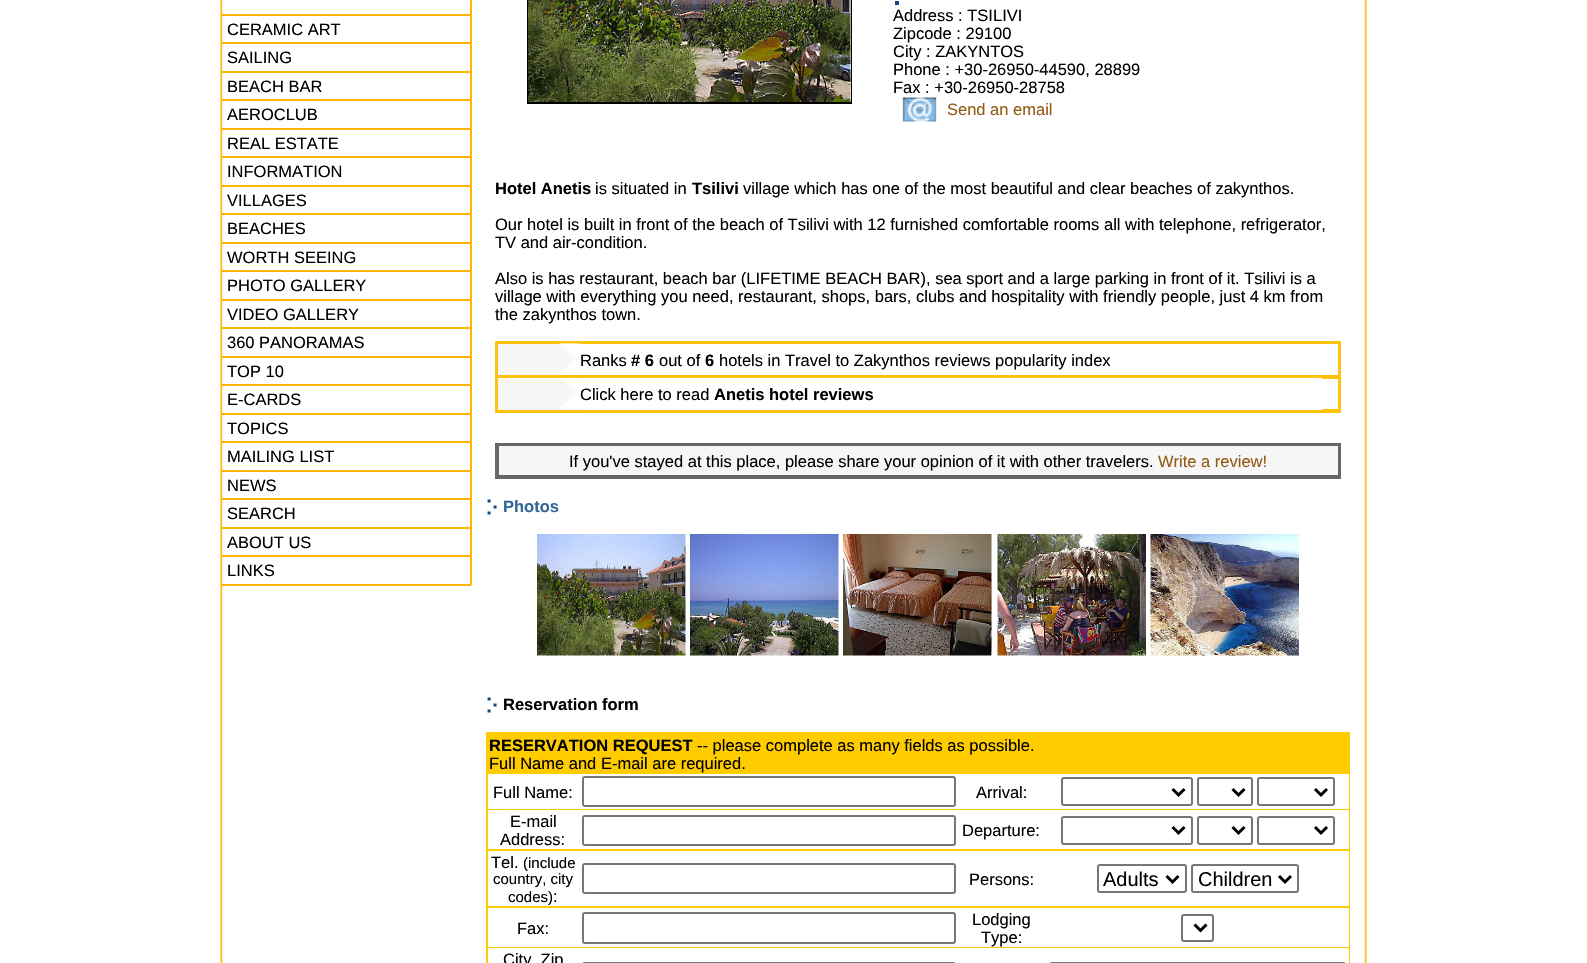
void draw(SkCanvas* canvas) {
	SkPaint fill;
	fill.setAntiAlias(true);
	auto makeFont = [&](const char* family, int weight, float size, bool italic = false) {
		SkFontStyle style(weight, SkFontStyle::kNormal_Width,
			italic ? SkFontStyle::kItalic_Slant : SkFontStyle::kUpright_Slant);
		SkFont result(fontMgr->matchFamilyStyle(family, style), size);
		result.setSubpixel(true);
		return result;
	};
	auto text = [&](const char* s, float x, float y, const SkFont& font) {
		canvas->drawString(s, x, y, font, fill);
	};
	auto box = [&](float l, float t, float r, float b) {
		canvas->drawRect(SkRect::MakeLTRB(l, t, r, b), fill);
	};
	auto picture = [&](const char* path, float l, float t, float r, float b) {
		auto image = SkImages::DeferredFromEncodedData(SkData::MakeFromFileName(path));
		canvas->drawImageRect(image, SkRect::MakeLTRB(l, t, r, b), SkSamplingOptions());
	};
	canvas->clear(0xFFFFFFFF);
	picture("image0.png", 220, 0, 1367, 963);
	fill.setColor(0xFFFFB400);
	box(470, 0, 472, 15);
	box(222, 14, 471, 16);
	box(470, 15, 472, 72);
	box(222, 42, 471, 44);
	box(222, 71, 471, 73);
	box(470, 72, 472, 129);
	box(222, 99, 471, 101);
	box(222, 128, 471, 130);
	box(470, 129, 472, 186);
	box(222, 156, 471, 158);
	box(222, 185, 471, 187);
	box(470, 186, 472, 243);
	box(222, 213, 471, 215);
	box(222, 242, 471, 244);
	box(470, 243, 472, 300);
	box(222, 270, 471, 272);
	box(222, 299, 471, 301);
	box(470, 300, 472, 357);
	box(222, 327, 471, 329);
	box(222, 356, 471, 358);
	box(470, 357, 472, 414);
	box(222, 384, 471, 386);
	box(222, 413, 471, 415);
	box(470, 414, 472, 471);
	box(222, 441, 471, 443);
	box(222, 470, 471, 472);
	box(470, 471, 472, 528);
	box(222, 498, 471, 500);
	box(222, 527, 471, 529);
	box(470, 528, 472, 585);
	box(222, 555, 471, 557);
	box(222, 584, 471, 586);
	fill.setColor(0xFF000000);
	box(527, 0, 852, 104);
	fill.setColor(0xFFFFFFFF);
	box(850, 0, 851, 102);
	picture("image1.png", 528, 0, 851, 102);
	fill.setColor(0xFF17457E);
	box(895, 1, 899, 5);
	picture("image2.png", 902, 97, 937, 122);
	fill.setStyle(SkPaint::kStroke_Style);
	fill.setStrokeWidth(2);
	fill.setColor(0xFFFFC30D);
	canvas->drawRect(SkRect::MakeLTRB(496, 342, 1340, 412), fill);
	canvas->drawRect(SkRect::MakeLTRB(498, 343, 1339, 376), fill);
	fill.setStyle(SkPaint::kFill_Style);
	fill.setColor(0xFFF6F6F6);
	box(498, 344, 581, 375);
	picture("image3.png", 559, 343, 581, 375);
	fill.setStyle(SkPaint::kStroke_Style);
	fill.setColor(0xFFFFC30D);
	canvas->drawRect(SkRect::MakeLTRB(498, 378, 1339, 410), fill);
	fill.setStyle(SkPaint::kFill_Style);
	fill.setColor(0xFFF6F6F6);
	box(498, 378, 581, 410);
	picture("image4.png", 560, 378, 581, 410);
	fill.setColor(0xFFFFFFFF);
	box(581, 378, 1322, 410);
	fill.setStyle(SkPaint::kStroke_Style);
	fill.setColor(0xFF666666);
	canvas->drawRect(SkRect::MakeLTRB(496, 444, 1340, 478), fill);
	fill.setStyle(SkPaint::kFill_Style);
	fill.setColor(0xFFF6F6F6);
	canvas->drawRect(SkRect::MakeLTRB(498, 445, 1339, 476), fill);
	fill.setStyle(SkPaint::kStroke_Style);
	fill.setColor(0xFF666666);
	canvas->drawRect(SkRect::MakeLTRB(498, 445, 1339, 476), fill);
	picture("image5.png", 487, 499, 497, 515);
	picture("image6.png", 537, 534, 686, 656);
	picture("image7.png", 690, 534, 839, 656);
	picture("image8.png", 843, 534, 992, 656);
	picture("image9.png", 997, 534, 1146, 656);
	picture("image10.png", 1150, 534, 1299, 656);
	picture("image5.png", 487, 697, 497, 713);
	fill.setStyle(SkPaint::kFill_Style);
	fill.setColor(0xFFFFCC00);
	box(486, 732, 1350, 963);
	fill.setColor(0xFFFFFFFF);
	box(488, 774, 1349, 809);
	fill.setStyle(SkPaint::kStroke_Style);
	fill.setColor(0xFF767676);
	canvas->drawRoundRect(SkRect::MakeLTRB(583, 777, 955, 806), 2, 2, fill);
	canvas->drawRoundRect(SkRect::MakeLTRB(1062, 778, 1192, 805), 2, 2, fill);
	fill.setStrokeWidth(3);
	fill.setColor(0xFF000000);
	canvas->drawPath(SkPathBuilder().moveTo(1172.5f, 789).lineTo(1178.5f, 795).lineTo(1184.5f, 789).detach(), fill);
	fill.setStrokeWidth(2);
	fill.setColor(0xFF767676);
	canvas->drawRoundRect(SkRect::MakeLTRB(1198, 778, 1252, 805), 2, 2, fill);
	fill.setStrokeWidth(3);
	fill.setColor(0xFF000000);
	canvas->drawPath(SkPathBuilder().moveTo(1232.5f, 789).lineTo(1238.5f, 795).lineTo(1244.5f, 789).detach(), fill);
	fill.setStrokeWidth(2);
	fill.setColor(0xFF767676);
	canvas->drawRoundRect(SkRect::MakeLTRB(1258, 778, 1334, 805), 2, 2, fill);
	fill.setStrokeWidth(3);
	fill.setColor(0xFF000000);
	canvas->drawPath(SkPathBuilder().moveTo(1315, 789).lineTo(1321, 795).lineTo(1327, 789).detach(), fill);
	fill.setStyle(SkPaint::kFill_Style);
	fill.setColor(0xFFFFFFFF);
	box(488, 810, 1349, 849);
	fill.setStyle(SkPaint::kStroke_Style);
	fill.setStrokeWidth(2);
	fill.setColor(0xFF767676);
	canvas->drawRoundRect(SkRect::MakeLTRB(583, 816, 955, 845), 2, 2, fill);
	canvas->drawRoundRect(SkRect::MakeLTRB(1062, 817, 1192, 844), 2, 2, fill);
	fill.setStrokeWidth(3);
	fill.setColor(0xFF000000);
	canvas->drawPath(SkPathBuilder().moveTo(1172.5f, 827).lineTo(1178.5f, 833).lineTo(1184.5f, 827).detach(), fill);
	fill.setStrokeWidth(2);
	fill.setColor(0xFF767676);
	canvas->drawRoundRect(SkRect::MakeLTRB(1198, 817, 1252, 844), 2, 2, fill);
	fill.setStrokeWidth(3);
	fill.setColor(0xFF000000);
	canvas->drawPath(SkPathBuilder().moveTo(1232.5f, 827).lineTo(1238.5f, 833).lineTo(1244.5f, 827).detach(), fill);
	fill.setStrokeWidth(2);
	fill.setColor(0xFF767676);
	canvas->drawRoundRect(SkRect::MakeLTRB(1258, 817, 1334, 844), 2, 2, fill);
	fill.setStrokeWidth(3);
	fill.setColor(0xFF000000);
	canvas->drawPath(SkPathBuilder().moveTo(1315, 827).lineTo(1321, 833).lineTo(1327, 827).detach(), fill);
	fill.setStyle(SkPaint::kFill_Style);
	fill.setColor(0xFFFFFFFF);
	box(488, 851, 1349, 906);
	fill.setStyle(SkPaint::kStroke_Style);
	fill.setStrokeWidth(2);
	fill.setColor(0xFF767676);
	canvas->drawRoundRect(SkRect::MakeLTRB(583, 864, 955, 893), 2, 2, fill);
	canvas->drawRoundRect(SkRect::MakeLTRB(1098, 865, 1186, 892), 2, 2, fill);
	fill.setStrokeWidth(3);
	fill.setColor(0xFF000000);
	canvas->drawPath(SkPathBuilder().moveTo(1166.5f, 876).lineTo(1172.5f, 882).lineTo(1178.5f, 876).detach(), fill);
	fill.setStrokeWidth(2);
	fill.setColor(0xFF767676);
	canvas->drawRoundRect(SkRect::MakeLTRB(1192, 865, 1298, 892), 2, 2, fill);
	fill.setStrokeWidth(3);
	fill.setColor(0xFF000000);
	canvas->drawPath(SkPathBuilder().moveTo(1279, 876).lineTo(1285, 882).lineTo(1291, 876).detach(), fill);
	fill.setStyle(SkPaint::kFill_Style);
	fill.setColor(0xFFFFFFFF);
	box(488, 908, 1349, 947);
	fill.setStyle(SkPaint::kStroke_Style);
	fill.setStrokeWidth(2);
	fill.setColor(0xFF767676);
	canvas->drawRoundRect(SkRect::MakeLTRB(583, 913, 955, 943), 2, 2, fill);
	canvas->drawRoundRect(SkRect::MakeLTRB(1182, 915, 1213, 941), 2, 2, fill);
	fill.setStrokeWidth(3);
	fill.setColor(0xFF000000);
	canvas->drawPath(SkPathBuilder().moveTo(1194.5f, 924.5f).lineTo(1200.5f, 930.5f).lineTo(1206.5f, 924.5f).detach(), fill);
	fill.setStyle(SkPaint::kFill_Style);
	fill.setColor(0xFFFFFFFF);
	box(488, 948, 1349, 963);
	fill.setStyle(SkPaint::kStroke_Style);
	fill.setStrokeWidth(2);
	fill.setColor(0xFF767676);
	canvas->drawRoundRect(SkRect::MakeLTRB(583, 963, 955, 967), 2, 2, fill);
	canvas->drawRoundRect(SkRect::MakeLTRB(1050, 963, 1345, 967), 2, 2, fill);
	auto font1 = makeFont("Liberation Sans", 400, 16.5f);
	fill.setStyle(SkPaint::kFill_Style);
	fill.setColor(0xFF000000);
	text("CERAMIC ART", 227, 35, font1);
	text("SAILING", 227, 63, font1);
	text("BEACH BAR", 227, 92, font1);
	text("AEROCLUB", 227, 120, font1);
	text("REAL ESTATE", 227, 149, font1);
	text("INFORMATION", 227, 177, font1);
	text("VILLAGES", 227, 206, font1);
	text("BEACHES", 227, 234, font1);
	text("WORTH SEEING", 227, 263, font1);
	text("PHOTO GALLERY", 227, 291, font1);
	text("VIDEO GALLERY", 227, 320, font1);
	text("360 PANORAMAS", 227, 348, font1);
	text("TOP 10", 227, 377, font1);
	text("E-CARDS", 227, 405, font1);
	text("TOPICS", 227, 434, font1);
	text("MAILING LIST", 227, 462, font1);
	text("NEWS", 227, 491, font1);
	text("SEARCH", 227, 519, font1);
	text("ABOUT US", 227, 548, font1);
	text("LINKS", 227, 576, font1);
	text("Address : TSILIVI", 893, 21, font1);
	text("Zipcode : 29100", 893, 39, font1);
	text("City : ZAKYNTOS", 893, 57, font1);
	text("Phone : +30-26950-44590, 28899", 893, 75, font1);
	text("Fax : +30-26950-28758", 893, 93, font1);
	fill.setColor(0xFF935911);
	text("Send an email", 947, 115, font1);
	auto font2 = makeFont("Liberation Sans", 700, 16.5f);
	fill.setColor(0xFF000000);
	text("Hotel Anetis", 495, 194, font2);
	text("is situated in", 595, 194, font1);
	text("Tsilivi", 692, 194, font2);
	text("village which has one of the most beautiful and clear beaches of zakynthos.", 743, 194, font1);
	text("Our hotel is built in front of the beach of Tsilivi with 12 furnished comfortable rooms all with telephone, refrigerator,", 495, 230, font1);
	text("TV and air-condition.", 495, 248, font1);
	text("Also is has restaurant, beach bar (LIFETIME BEACH BAR), sea sport and a large parking in front of it. Tsilivi is a", 495, 284, font1);
	text("village with everything you need, restaurant, shops, bars, clubs and hospitality with friendly people, just 4 km from", 495, 302, font1);
	text("the zakynthos town.", 495, 320, font1);
	text("Ranks", 580, 366, font1);
	text("# 6", 631, 366, font2);
	text("out of", 659, 366, font1);
	text("6", 705, 366, font2);
	text("hotels in Travel to Zakynthos reviews popularity index", 719, 366, font1);
	text("Click here to read", 580, 400, font1);
	text("Anetis hotel reviews", 714, 400, font2);
	text("If you've stayed at this place, please share your opinion of it with other travelers.", 569, 467, font1);
	fill.setColor(0xFF935911);
	text("Write a review!", 1158, 467, font1);
	fill.setColor(0xFF336699);
	text("Photos", 503, 512, font2);
	fill.setColor(0xFF000000);
	text("Reservation form", 503, 710, font2);
	text("RESERVATION REQUEST", 489, 751, font2);
	text("-- please complete as many fields as possible.", 697, 751, font1);
	text("Full Name and E-mail are required.", 489, 769, font1);
	text("Full Name:", 493, 798, font1);
	text("Arrival:", 976, 798, font1);
	text("E-mail", 510, 827, font1);
	text("Address:", 500, 845, font1);
	text("Departure:", 962, 836, font1);
	text("Tel.", 491, 868, font1);
	auto font3 = makeFont("Liberation Sans", 400, 15);
	text("(include", 523, 868, font3);
	text("country, city", 493, 884, font3);
	text("codes)", 508, 902, font3);
	text(":", 553, 902, font1);
	text("Persons:", 969, 885, font1);
	auto font4 = makeFont("Liberation Sans", 400, 20);
	text("Adults", 1103, 886, font4);
	text("Children", 1198, 886, font4);
	text("Fax:", 517, 934, font1);
	text("Lodging", 972, 925, font1);
	text("Type:", 981, 943, font1);
	text("City, Zip", 503, 965, font1);
}
